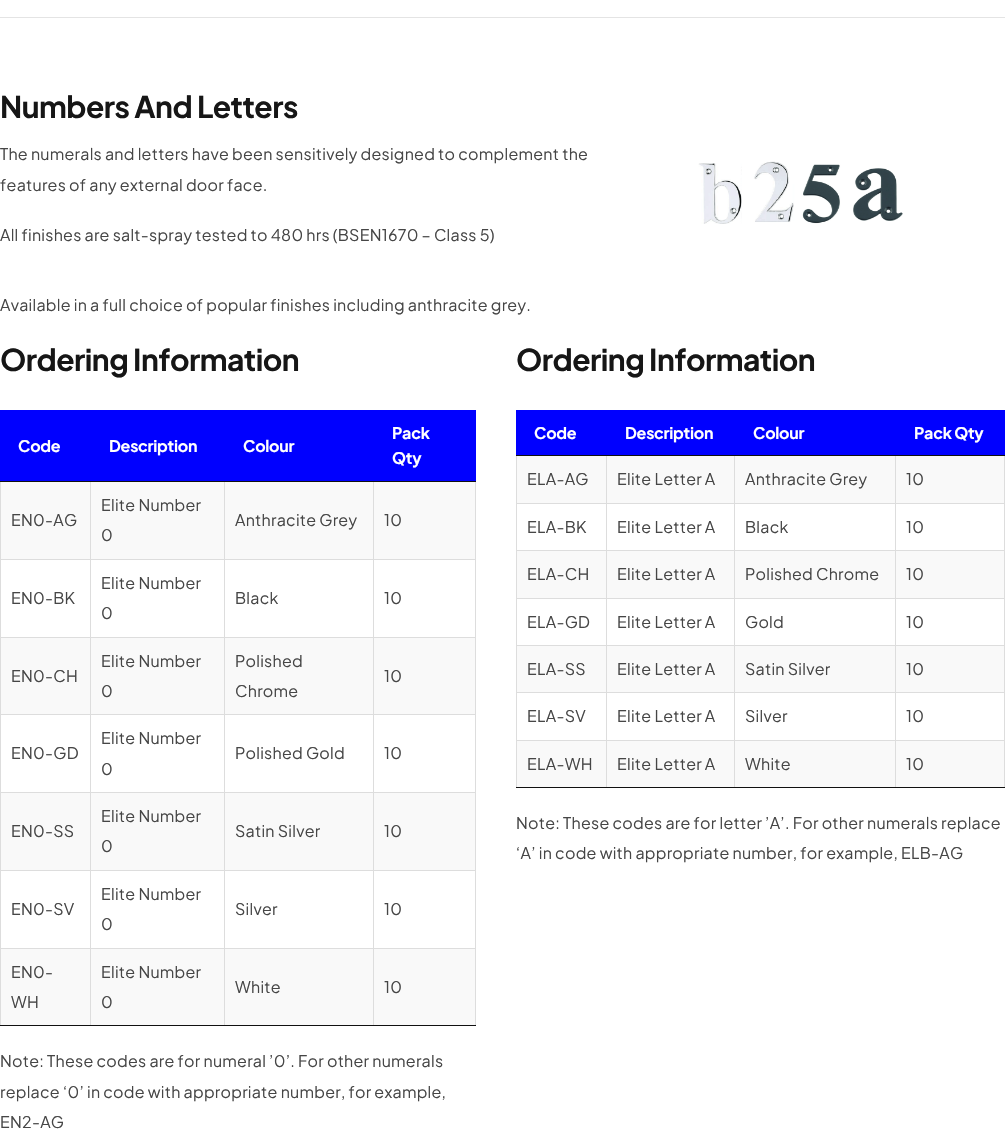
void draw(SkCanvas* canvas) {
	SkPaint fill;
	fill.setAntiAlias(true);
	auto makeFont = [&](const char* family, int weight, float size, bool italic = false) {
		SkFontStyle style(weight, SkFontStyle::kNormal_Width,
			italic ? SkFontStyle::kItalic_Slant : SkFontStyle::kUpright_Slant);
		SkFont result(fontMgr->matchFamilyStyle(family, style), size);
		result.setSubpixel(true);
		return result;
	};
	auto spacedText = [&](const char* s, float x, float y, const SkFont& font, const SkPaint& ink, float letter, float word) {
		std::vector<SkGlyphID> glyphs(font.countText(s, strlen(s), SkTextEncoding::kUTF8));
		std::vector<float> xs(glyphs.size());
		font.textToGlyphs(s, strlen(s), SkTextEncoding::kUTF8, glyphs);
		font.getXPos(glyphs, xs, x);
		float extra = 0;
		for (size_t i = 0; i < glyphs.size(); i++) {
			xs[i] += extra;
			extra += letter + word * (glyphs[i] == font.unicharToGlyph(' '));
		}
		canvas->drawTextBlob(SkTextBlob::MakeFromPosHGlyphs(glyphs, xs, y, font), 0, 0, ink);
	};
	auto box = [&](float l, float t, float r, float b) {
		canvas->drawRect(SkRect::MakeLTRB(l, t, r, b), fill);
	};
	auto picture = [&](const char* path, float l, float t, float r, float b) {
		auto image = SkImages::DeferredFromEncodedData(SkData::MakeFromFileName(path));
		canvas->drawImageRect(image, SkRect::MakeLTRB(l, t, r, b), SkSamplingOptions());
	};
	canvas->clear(0xFFFFFFFF);
	fill.setColor(0xFFE4E4E4);
	box(0, 17, 1005, 18);
	picture("image0.png", 698, 161, 903, 224);
	fill.setColor(0xFF111111);
	box(0, 1025, 476, 1026);
	fill.setColor(0xFF0000FF);
	box(0, 410, 476, 481);
	fill.setColor(0xFF111111);
	box(0, 481, 476, 482);
	fill.setColor(0xFFF9F9F9);
	box(1, 482, 475, 559);
	fill.setColor(0xFFDDDDDD);
	box(90, 482, 91, 559);
	box(0, 482, 1, 559);
	box(224, 482, 225, 559);
	box(373, 482, 374, 559);
	box(475, 482, 476, 559);
	box(0, 559, 476, 560);
	box(90, 559, 91, 637);
	box(0, 559, 1, 637);
	box(224, 559, 225, 637);
	box(373, 559, 374, 637);
	box(475, 559, 476, 637);
	fill.setColor(0xFFF9F9F9);
	box(1, 638, 475, 714);
	fill.setColor(0xFFDDDDDD);
	box(0, 637, 476, 638);
	box(90, 637, 91, 714);
	box(0, 637, 1, 714);
	box(224, 637, 225, 714);
	box(373, 637, 374, 714);
	box(475, 637, 476, 714);
	box(0, 714, 476, 715);
	box(90, 714, 91, 792);
	box(0, 714, 1, 792);
	box(224, 714, 225, 792);
	box(373, 714, 374, 792);
	box(475, 714, 476, 792);
	fill.setColor(0xFFF9F9F9);
	box(1, 793, 475, 870);
	fill.setColor(0xFFDDDDDD);
	box(0, 792, 476, 793);
	box(90, 792, 91, 870);
	box(0, 792, 1, 870);
	box(224, 792, 225, 870);
	box(373, 792, 374, 870);
	box(475, 792, 476, 870);
	box(0, 870, 476, 871);
	box(90, 870, 91, 948);
	box(0, 870, 1, 948);
	box(224, 870, 225, 948);
	box(373, 870, 374, 948);
	box(475, 870, 476, 948);
	fill.setColor(0xFFF9F9F9);
	box(1, 949, 475, 1025);
	fill.setColor(0xFFDDDDDD);
	box(0, 948, 476, 949);
	box(90, 948, 91, 1025);
	box(0, 948, 1, 1025);
	box(224, 948, 225, 1025);
	box(373, 948, 374, 1025);
	box(475, 948, 476, 1025);
	fill.setColor(0xFF111111);
	box(516, 787, 1005, 788);
	fill.setColor(0xFF0000FF);
	box(516, 410, 1005, 455);
	fill.setColor(0xFF111111);
	box(516, 455, 1005, 456);
	fill.setColor(0xFFF9F9F9);
	box(517, 456, 1004, 503);
	fill.setColor(0xFFDDDDDD);
	box(606, 456, 607, 503);
	box(516, 456, 517, 503);
	box(734, 456, 735, 503);
	box(895, 456, 896, 503);
	box(1004, 456, 1005, 503);
	box(516, 503, 1005, 504);
	box(606, 503, 607, 550);
	box(516, 503, 517, 550);
	box(734, 503, 735, 550);
	box(895, 503, 896, 550);
	box(1004, 503, 1005, 550);
	fill.setColor(0xFFF9F9F9);
	box(517, 551, 1004, 598);
	fill.setColor(0xFFDDDDDD);
	box(516, 550, 1005, 551);
	box(606, 550, 607, 598);
	box(516, 550, 517, 598);
	box(734, 550, 735, 598);
	box(895, 550, 896, 598);
	box(1004, 550, 1005, 598);
	box(516, 598, 1005, 599);
	box(606, 598, 607, 645);
	box(516, 598, 517, 645);
	box(734, 598, 735, 645);
	box(895, 598, 896, 645);
	box(1004, 598, 1005, 645);
	fill.setColor(0xFFF9F9F9);
	box(517, 646, 1004, 692);
	fill.setColor(0xFFDDDDDD);
	box(516, 645, 1005, 646);
	box(606, 645, 607, 692);
	box(516, 645, 517, 692);
	box(734, 645, 735, 692);
	box(895, 645, 896, 692);
	box(1004, 645, 1005, 692);
	box(516, 692, 1005, 693);
	box(606, 692, 607, 740);
	box(516, 692, 517, 740);
	box(734, 692, 735, 740);
	box(895, 692, 896, 740);
	box(1004, 692, 1005, 740);
	fill.setColor(0xFFF9F9F9);
	box(517, 741, 1004, 787);
	fill.setColor(0xFFDDDDDD);
	box(516, 740, 1005, 741);
	box(606, 740, 607, 787);
	box(516, 740, 517, 787);
	box(734, 740, 735, 787);
	box(895, 740, 896, 787);
	box(1004, 740, 1005, 787);
	auto font1 = makeFont("Plus Jakarta Sans", 700, 30);
	fill.setColor(0xFF161616);
	spacedText("Numbers And Letters", 0, 118, font1, fill, -0.5f, 0);
	auto font2 = makeFont("Plus Jakarta Sans", 400, 16);
	fill.setColor(0xFF464646);
	spacedText("The numerals and letters have been sensitively designed to complement the", 0, 160, font2, fill, 0.25f, 0);
	spacedText("features of any external door face.", 0, 191, font2, fill, 0.25f, 0);
	spacedText("All finishes are salt-spray tested to 480 hrs (BSEN1670 – Class 5)", 0, 241, font2, fill, 0.25f, 0);
	spacedText("Available in a full choice of popular finishes including anthracite grey.", 0, 311, font2, fill, 0.25f, 0);
	fill.setColor(0xFF161616);
	spacedText("Ordering Information", 0, 371, font1, fill, -0.5f, 0);
	auto font3 = makeFont("Plus Jakarta Sans", 700, 16);
	fill.setColor(0xFFFFFFFF);
	spacedText("Code", 18, 452, font3, fill, -0.25f, 0);
	spacedText("Description", 109, 452, font3, fill, -0.25f, 0);
	spacedText("Colour", 243, 452, font3, fill, -0.25f, 0);
	spacedText("Pack", 392, 439, font3, fill, -0.25f, 0);
	spacedText("Qty", 392, 464, font3, fill, -0.25f, 0);
	fill.setColor(0xFF464646);
	spacedText("EN0-AG", 11, 526, font2, fill, 0.25f, 0);
	spacedText("Elite Number", 101, 511, font2, fill, 0.25f, 0);
	spacedText("0", 101, 541, font2, fill, 0.25f, 0);
	spacedText("Anthracite Grey", 235, 526, font2, fill, 0.25f, 0);
	spacedText("10", 384, 526, font2, fill, 0.25f, 0);
	spacedText("EN0-BK", 11, 604, font2, fill, 0.25f, 0);
	spacedText("Elite Number", 101, 589, font2, fill, 0.25f, 0);
	spacedText("0", 101, 619, font2, fill, 0.25f, 0);
	spacedText("Black", 235, 604, font2, fill, 0.25f, 0);
	spacedText("10", 384, 604, font2, fill, 0.25f, 0);
	spacedText("EN0-CH", 11, 682, font2, fill, 0.25f, 0);
	spacedText("Elite Number", 101, 667, font2, fill, 0.25f, 0);
	spacedText("0", 101, 697, font2, fill, 0.25f, 0);
	spacedText("Polished", 235, 667, font2, fill, 0.25f, 0);
	spacedText("Chrome", 235, 697, font2, fill, 0.25f, 0);
	spacedText("10", 384, 682, font2, fill, 0.25f, 0);
	spacedText("EN0-GD", 11, 759, font2, fill, 0.25f, 0);
	spacedText("Elite Number", 101, 744, font2, fill, 0.25f, 0);
	spacedText("0", 101, 775, font2, fill, 0.25f, 0);
	spacedText("Polished Gold", 235, 759, font2, fill, 0.25f, 0);
	spacedText("10", 384, 759, font2, fill, 0.25f, 0);
	spacedText("EN0-SS", 11, 837, font2, fill, 0.25f, 0);
	spacedText("Elite Number", 101, 822, font2, fill, 0.25f, 0);
	spacedText("0", 101, 852, font2, fill, 0.25f, 0);
	spacedText("Satin Silver", 235, 837, font2, fill, 0.25f, 0);
	spacedText("10", 384, 837, font2, fill, 0.25f, 0);
	spacedText("EN0-SV", 11, 915, font2, fill, 0.25f, 0);
	spacedText("Elite Number", 101, 900, font2, fill, 0.25f, 0);
	spacedText("0", 101, 930, font2, fill, 0.25f, 0);
	spacedText("Silver", 235, 915, font2, fill, 0.25f, 0);
	spacedText("10", 384, 915, font2, fill, 0.25f, 0);
	spacedText("EN0-", 11, 978, font2, fill, 0.25f, 0);
	spacedText("WH", 11, 1008, font2, fill, 0.25f, 0);
	spacedText("Elite Number", 101, 978, font2, fill, 0.25f, 0);
	spacedText("0", 101, 1008, font2, fill, 0.25f, 0);
	spacedText("White", 235, 993, font2, fill, 0.25f, 0);
	spacedText("10", 384, 993, font2, fill, 0.25f, 0);
	spacedText("Note: These codes are for numeral ’0’. For other numerals", 0, 1067, font2, fill, 0.25f, 0);
	spacedText("replace ‘0’ in code with appropriate number, for example,", 0, 1098, font2, fill, 0.25f, 0);
	spacedText("EN2-AG", 0, 1128, font2, fill, 0.25f, 0);
	fill.setColor(0xFF161616);
	spacedText("Ordering Information", 516, 371, font1, fill, -0.5f, 0);
	fill.setColor(0xFFFFFFFF);
	spacedText("Code", 534, 439, font3, fill, -0.25f, 0);
	spacedText("Description", 625, 439, font3, fill, -0.25f, 0);
	spacedText("Colour", 753, 439, font3, fill, -0.25f, 0);
	spacedText("Pack Qty", 914, 439, font3, fill, -0.25f, 0);
	fill.setColor(0xFF464646);
	spacedText("ELA-AG", 527, 485, font2, fill, 0.25f, 0);
	spacedText("Elite Letter A", 617, 485, font2, fill, 0.25f, 0);
	spacedText("Anthracite Grey", 745, 485, font2, fill, 0.25f, 0);
	spacedText("10", 906, 485, font2, fill, 0.25f, 0);
	spacedText("ELA-BK", 527, 533, font2, fill, 0.25f, 0);
	spacedText("Elite Letter A", 617, 533, font2, fill, 0.25f, 0);
	spacedText("Black", 745, 533, font2, fill, 0.25f, 0);
	spacedText("10", 906, 533, font2, fill, 0.25f, 0);
	spacedText("ELA-CH", 527, 580, font2, fill, 0.25f, 0);
	spacedText("Elite Letter A", 617, 580, font2, fill, 0.25f, 0);
	spacedText("Polished Chrome", 745, 580, font2, fill, 0.25f, 0);
	spacedText("10", 906, 580, font2, fill, 0.25f, 0);
	spacedText("ELA-GD", 527, 628, font2, fill, 0.25f, 0);
	spacedText("Elite Letter A", 617, 628, font2, fill, 0.25f, 0);
	spacedText("Gold", 745, 628, font2, fill, 0.25f, 0);
	spacedText("10", 906, 628, font2, fill, 0.25f, 0);
	spacedText("ELA-SS", 527, 675, font2, fill, 0.25f, 0);
	spacedText("Elite Letter A", 617, 675, font2, fill, 0.25f, 0);
	spacedText("Satin Silver", 745, 675, font2, fill, 0.25f, 0);
	spacedText("10", 906, 675, font2, fill, 0.25f, 0);
	spacedText("ELA-SV", 527, 722, font2, fill, 0.25f, 0);
	spacedText("Elite Letter A", 617, 722, font2, fill, 0.25f, 0);
	spacedText("Silver", 745, 722, font2, fill, 0.25f, 0);
	spacedText("10", 906, 722, font2, fill, 0.25f, 0);
	spacedText("ELA-WH", 527, 770, font2, fill, 0.25f, 0);
	spacedText("Elite Letter A", 617, 770, font2, fill, 0.25f, 0);
	spacedText("White", 745, 770, font2, fill, 0.25f, 0);
	spacedText("10", 906, 770, font2, fill, 0.25f, 0);
	spacedText("Note: These codes are for letter ’A’. For other numerals replace", 516, 829, font2, fill, 0.25f, 0);
	spacedText("‘A’ in code with appropriate number, for example, ELB-AG", 516, 859, font2, fill, 0.25f, 0);
}
